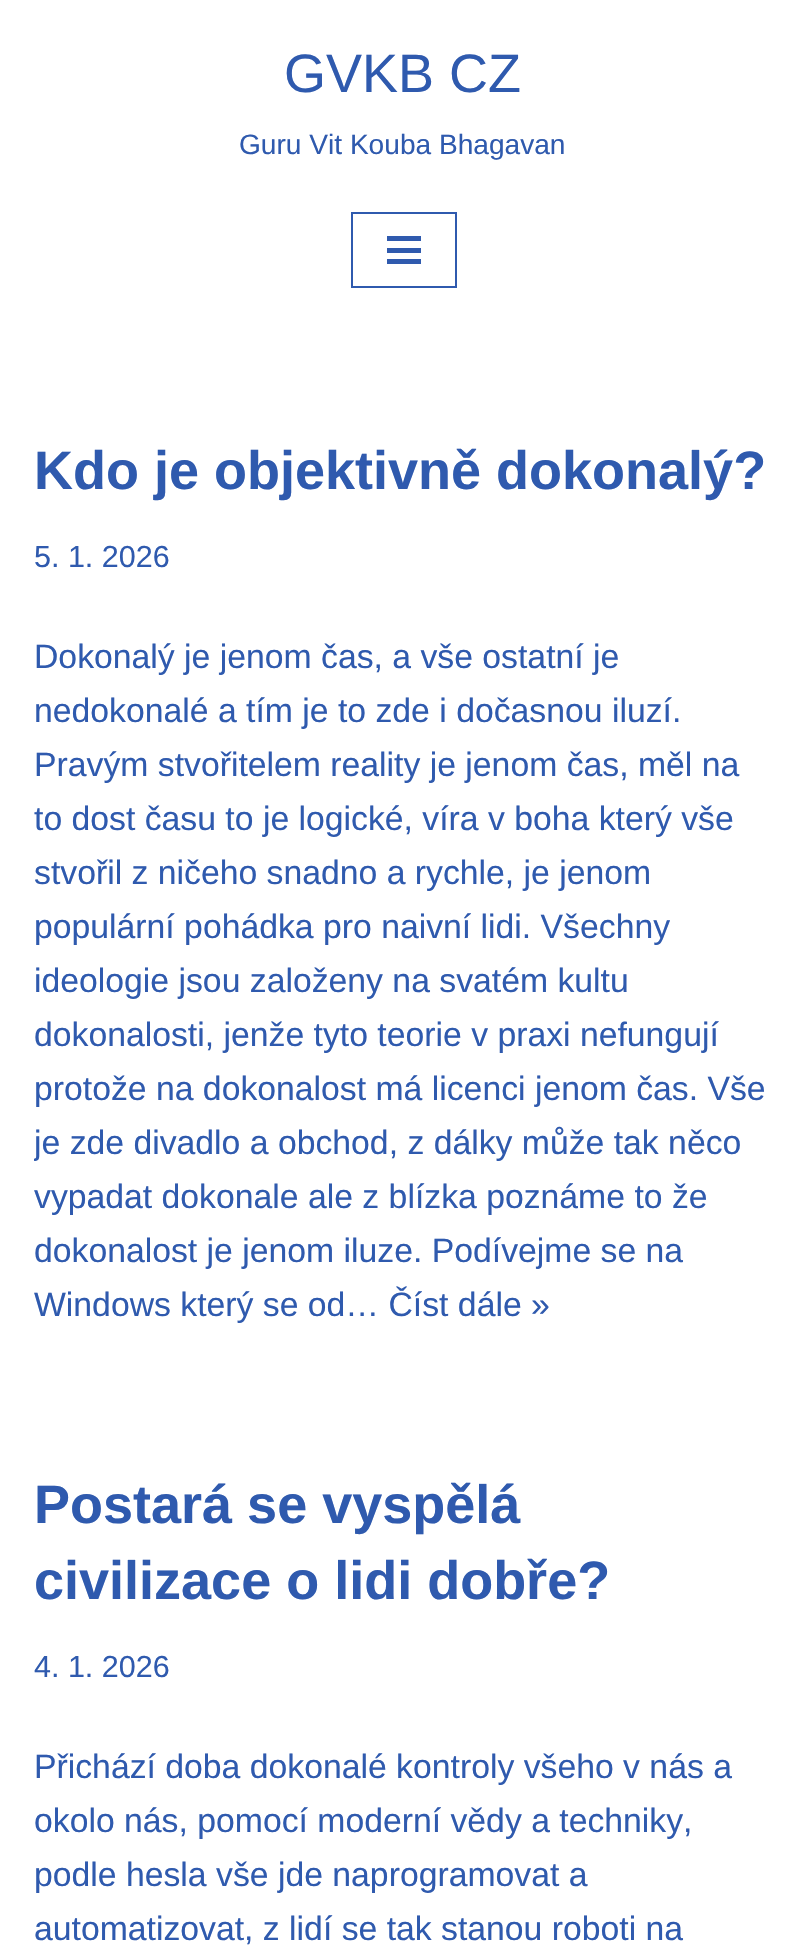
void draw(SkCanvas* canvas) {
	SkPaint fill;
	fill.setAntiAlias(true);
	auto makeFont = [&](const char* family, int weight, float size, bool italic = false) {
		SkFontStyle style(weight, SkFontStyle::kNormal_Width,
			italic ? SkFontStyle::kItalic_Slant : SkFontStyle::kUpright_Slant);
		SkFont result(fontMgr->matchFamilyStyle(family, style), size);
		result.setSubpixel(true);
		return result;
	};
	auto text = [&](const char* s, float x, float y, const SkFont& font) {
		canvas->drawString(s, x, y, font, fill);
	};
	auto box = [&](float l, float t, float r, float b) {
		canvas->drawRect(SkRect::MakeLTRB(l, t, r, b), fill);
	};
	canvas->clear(0xFFFFFFFF);
	fill.setStyle(SkPaint::kStroke_Style);
	fill.setStrokeWidth(2);
	fill.setColor(0xFF2F5AAE);
	canvas->drawRect(SkRect::MakeLTRB(352, 213, 456, 287), fill);
	fill.setStyle(SkPaint::kFill_Style);
	box(387, 236, 421, 241);
	box(387, 248, 421, 253);
	box(387, 259, 421, 264);
	auto font1 = makeFont("Liberation Sans", 400, 54);
	text("GVKB CZ", 284, 92, font1);
	auto font2 = makeFont("Liberation Sans", 400, 28.1f);
	text("Guru Vit Kouba Bhagavan", 239, 154, font2);
	auto font3 = makeFont("Liberation Sans", 700, 54);
	text("Kdo je objektivně dokonalý?", 34, 489, font3);
	auto font4 = makeFont("Liberation Sans", 400, 30.5f);
	text("5. 1. 2026", 34, 567, font4);
	auto font5 = makeFont("Liberation Sans", 400, 33.75f);
	text("Dokonalý je jenom čas, a vše ostatní je", 34, 668, font5);
	text("nedokonalé a tím je to zde i dočasnou iluzí.", 34, 722, font5);
	text("Pravým stvořitelem reality je jenom čas, měl na", 34, 776, font5);
	text("to dost času to je logické, víra v boha který vše", 34, 830, font5);
	text("stvořil z ničeho snadno a rychle, je jenom", 34, 884, font5);
	text("populární pohádka pro naivní lidi. Všechny", 34, 938, font5);
	text("ideologie jsou založeny na svatém kultu", 34, 992, font5);
	text("dokonalosti, jenže tyto teorie v praxi nefungují", 34, 1046, font5);
	text("protože na dokonalost má licenci jenom čas. Vše", 34, 1100, font5);
	canvas->save();
	canvas->clipRect(SkRect::MakeLTRB(34, 432, 772, 1332));
	text("je zde divadlo a obchod, z dálky může tak něco", 34, 1154, font5);
	canvas->restore();
	text("vypadat dokonale ale z blízka poznáme to že", 34, 1208, font5);
	text("dokonalost je jenom iluze. Podívejme se na", 34, 1262, font5);
	text("Windows který se od… Číst dále »", 34, 1316, font5);
	text("Postará se vyspělá", 34, 1523, font3);
	text("civilizace o lidi dobře?", 34, 1599, font3);
	text("4. 1. 2026", 34, 1677, font4);
	text("Přichází doba dokonalé kontroly všeho v nás a", 34, 1778, font5);
	text("okolo nás, pomocí moderní vědy a techniky,", 34, 1832, font5);
	text("podle hesla vše jde naprogramovat a", 34, 1886, font5);
	text("automatizovat, z lidí se tak stanou roboti na", 34, 1940, font5);
}
